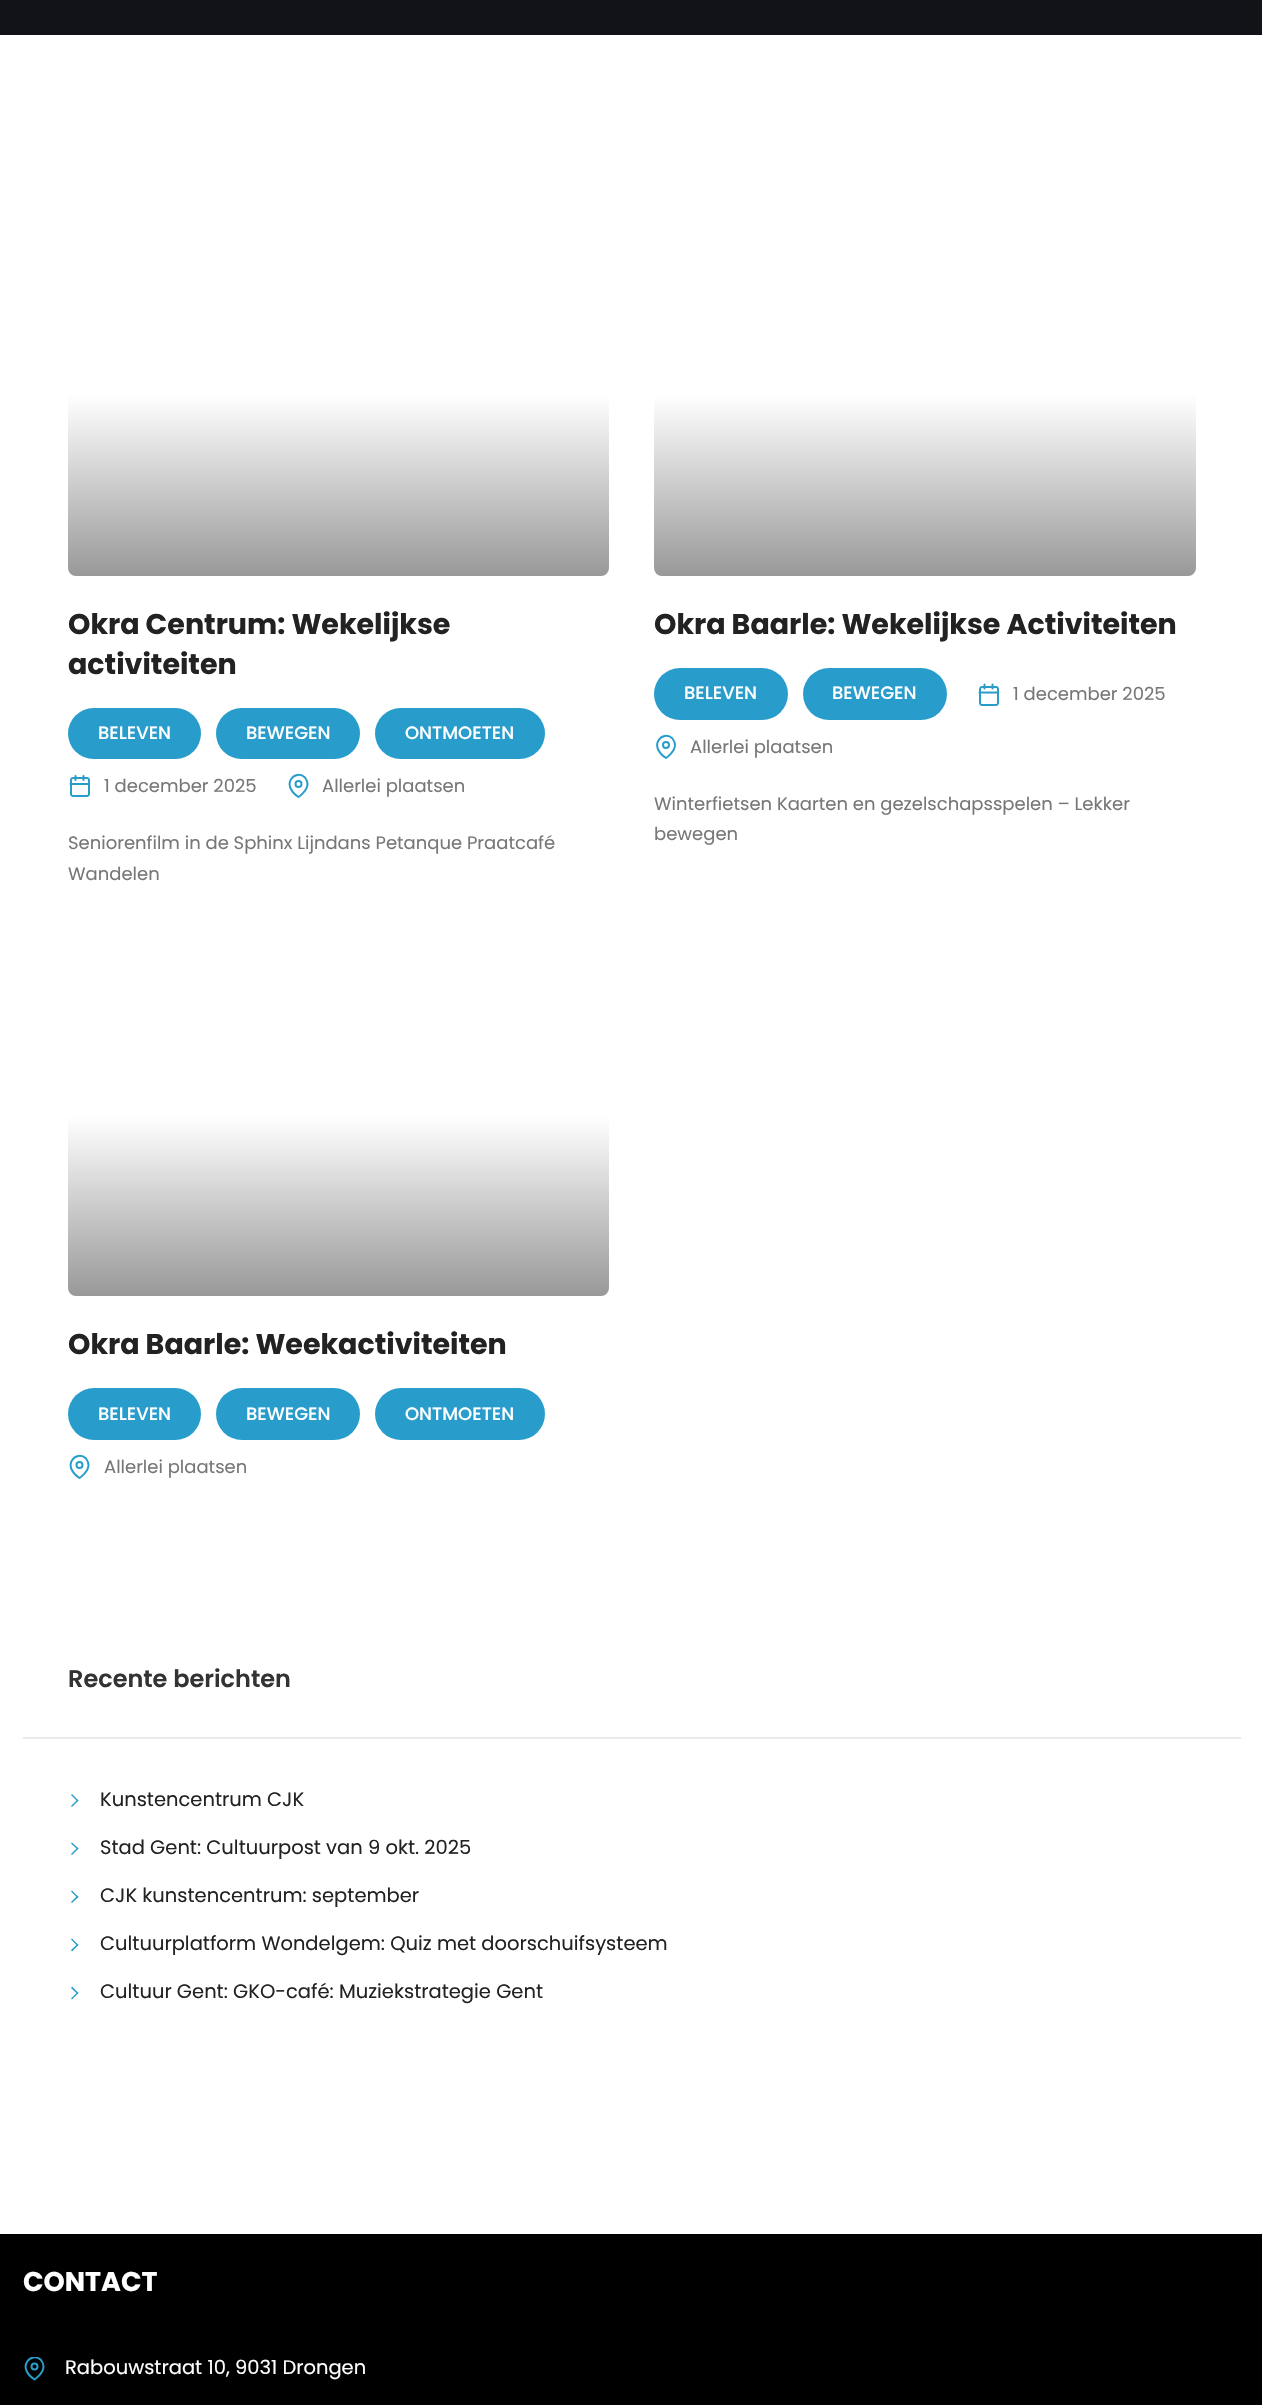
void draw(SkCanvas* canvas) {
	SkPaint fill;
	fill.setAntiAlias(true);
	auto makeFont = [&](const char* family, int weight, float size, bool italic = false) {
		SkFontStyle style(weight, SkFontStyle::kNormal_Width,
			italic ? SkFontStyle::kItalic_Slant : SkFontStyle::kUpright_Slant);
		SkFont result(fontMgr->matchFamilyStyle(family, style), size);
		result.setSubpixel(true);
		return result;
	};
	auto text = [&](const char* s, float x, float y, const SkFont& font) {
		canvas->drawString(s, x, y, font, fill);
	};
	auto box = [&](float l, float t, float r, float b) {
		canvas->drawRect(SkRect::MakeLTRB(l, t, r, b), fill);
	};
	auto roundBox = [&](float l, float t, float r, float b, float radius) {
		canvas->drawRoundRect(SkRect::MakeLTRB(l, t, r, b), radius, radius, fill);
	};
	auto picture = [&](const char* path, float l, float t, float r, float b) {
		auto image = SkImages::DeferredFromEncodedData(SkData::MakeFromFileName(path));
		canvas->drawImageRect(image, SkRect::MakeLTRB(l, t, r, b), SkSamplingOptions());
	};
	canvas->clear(0xFFFFFFFF);
	fill.setColor(0xFF121219);
	box(0, 0, 1262, 35);
	{
		const SkColor colors[] = {0xFFFFFFFF, 0xFFFFFFFF, 0xFF999999};
		const float stops[] = {0, 0.5f, 1};
		const SkPoint ends[] = {{338, 214}, {338, 576}};
		fill.setShader(SkGradientShader::MakeLinear(ends, colors, stops, 3, SkTileMode::kClamp));
		fill.setAlpha(255);
	}
	roundBox(68, 215, 609, 576, 8);
	fill.setShader(nullptr);
	fill.setColor(0xFF289DCC);
	roundBox(68, 708, 201, 759, 25.5f);
	roundBox(216, 708, 360, 759, 25.5f);
	roundBox(375, 708, 545, 759, 25.5f);
	picture("image0.png", 69, 775, 90, 797);
	fill.setStyle(SkPaint::kStroke_Style);
	fill.setStrokeWidth(2);
	fill.setStrokeCap(SkPaint::kRound_Cap);
	fill.setStrokeJoin(SkPaint::kRound_Join);
	canvas->drawPath(SkPathBuilder().moveTo(307.5f, 784).cubicTo(307.5f, 791, 298.5f, 797, 298.5f, 797).cubicTo(279.5f, 784.5f, 295.5f, 768.5f, 305, 777.5f).cubicTo(306.5f, 779.5f, 307.5f, 781.5f, 307.5f, 784).close().detach(), fill);
	fill.setStrokeCap(SkPaint::kButt_Cap);
	fill.setStrokeJoin(SkPaint::kMiter_Join);
	canvas->drawCircle(298.5f, 784, 3, fill);
	fill.setStyle(SkPaint::kFill_Style);
	{
		const SkColor colors[] = {0xFFFFFFFF, 0xFFFFFFFF, 0xFF999999};
		const float stops[] = {0, 0.5f, 1};
		const SkPoint ends[] = {{925, 214}, {925, 576}};
		fill.setShader(SkGradientShader::MakeLinear(ends, colors, stops, 3, SkTileMode::kClamp));
		fill.setAlpha(255);
	}
	roundBox(654, 215, 1196, 576, 8);
	fill.setShader(nullptr);
	fill.setColor(0xFF289DCC);
	roundBox(654, 668, 788, 720, 26);
	roundBox(803, 668, 947, 720, 26);
	picture("image1.png", 978, 683, 999, 706);
	fill.setStyle(SkPaint::kStroke_Style);
	fill.setStrokeCap(SkPaint::kRound_Cap);
	fill.setStrokeJoin(SkPaint::kRound_Join);
	canvas->drawPath(SkPathBuilder().moveTo(675, 745).cubicTo(675, 752, 666, 758, 666, 758).cubicTo(647, 745.5f, 663, 729.5f, 672.5f, 738.5f).cubicTo(674, 740.5f, 675, 742.5f, 675, 745).close().detach(), fill);
	fill.setStrokeCap(SkPaint::kButt_Cap);
	fill.setStrokeJoin(SkPaint::kMiter_Join);
	canvas->drawCircle(666, 745, 3, fill);
	fill.setStyle(SkPaint::kFill_Style);
	{
		const SkColor colors[] = {0xFFFFFFFF, 0xFFFFFFFF, 0xFF999999};
		const float stops[] = {0, 0.5f, 1};
		const SkPoint ends[] = {{338, 935}, {338, 1296}};
		fill.setShader(SkGradientShader::MakeLinear(ends, colors, stops, 3, SkTileMode::kClamp));
		fill.setAlpha(255);
	}
	roundBox(68, 935, 609, 1296, 8);
	fill.setShader(nullptr);
	fill.setColor(0xFF289DCC);
	roundBox(68, 1388, 201, 1440, 26);
	roundBox(216, 1388, 360, 1440, 26);
	roundBox(375, 1388, 545, 1440, 26);
	fill.setStyle(SkPaint::kStroke_Style);
	fill.setStrokeCap(SkPaint::kRound_Cap);
	fill.setStrokeJoin(SkPaint::kRound_Join);
	canvas->drawPath(SkPathBuilder().moveTo(88.5f, 1465).cubicTo(88.5f, 1472, 79.5f, 1478, 79.5f, 1478).cubicTo(60.5f, 1465.5f, 76.5f, 1449.5f, 86, 1458.5f).cubicTo(87.5f, 1460.5f, 88.5f, 1462.5f, 88.5f, 1465).close().detach(), fill);
	fill.setStrokeCap(SkPaint::kButt_Cap);
	fill.setStrokeJoin(SkPaint::kMiter_Join);
	canvas->drawCircle(79.5f, 1465, 3, fill);
	fill.setStyle(SkPaint::kFill_Style);
	fill.setColor(0xFFEAEAEA);
	box(23, 1737, 1241, 1739);
	fill.setColor(0xFF289DCC);
	canvas->drawPath(SkPathBuilder().moveTo(78.5f, 1800.5f).lineTo(72, 1807).lineTo(71, 1806).lineTo(77.5f, 1799.5f).close().detach(), fill);
	canvas->drawPath(SkPathBuilder().moveTo(78.5f, 1800.5f).lineTo(77.5f, 1801.5f).lineTo(71, 1795).lineTo(72, 1794).close().moveTo(78.5f, 1848.5f).lineTo(72, 1855).lineTo(71, 1854).lineTo(77.5f, 1847.5f).close().detach(), fill);
	canvas->drawPath(SkPathBuilder().moveTo(78.5f, 1848.5f).lineTo(77.5f, 1849.5f).lineTo(71, 1843.5f).lineTo(72, 1842.5f).close().moveTo(78.5f, 1897).lineTo(72, 1903).lineTo(71, 1902).lineTo(77.5f, 1895.5f).close().detach(), fill);
	canvas->drawPath(SkPathBuilder().moveTo(78.5f, 1897).lineTo(77.5f, 1898).lineTo(71, 1891.5f).lineTo(72, 1890.5f).close().moveTo(78.5f, 1945).lineTo(72, 1951.5f).lineTo(71, 1950).lineTo(77.5f, 1944).close().detach(), fill);
	canvas->drawPath(SkPathBuilder().moveTo(78.5f, 1945).lineTo(77.5f, 1946).lineTo(71, 1939.5f).lineTo(72, 1938.5f).close().moveTo(78.5f, 1993).lineTo(72, 1999.5f).lineTo(71, 1998.5f).lineTo(77.5f, 1992).close().detach(), fill);
	canvas->drawPath(SkPathBuilder().moveTo(78.5f, 1993).lineTo(77.5f, 1994).lineTo(71, 1988).lineTo(72, 1986.5f).close().detach(), fill);
	fill.setColor(0xFF000000);
	box(0, 2234, 1262, 2405);
	canvas->save();
	canvas->clipRect(SkRect::MakeLTRB(23, 2357, 47, 2381));
	fill.setStyle(SkPaint::kStroke_Style);
	fill.setStrokeCap(SkPaint::kRound_Cap);
	fill.setStrokeJoin(SkPaint::kRound_Join);
	fill.setColor(0xFF289DCC);
	canvas->drawPath(SkPathBuilder().moveTo(43.5f, 2366.5f).cubicTo(43.5f, 2373.5f, 34.5f, 2379.5f, 34.5f, 2379.5f).cubicTo(15.5f, 2367, 31.5f, 2351, 41, 2360).cubicTo(42.5f, 2362, 43.5f, 2364, 43.5f, 2366.5f).close().detach(), fill);
	canvas->restore();
	fill.setStrokeCap(SkPaint::kButt_Cap);
	fill.setStrokeJoin(SkPaint::kMiter_Join);
	canvas->drawCircle(34.5f, 2366.5f, 3, fill);
	auto font1 = makeFont("Poppins", 700, 28.5f);
	fill.setStyle(SkPaint::kFill_Style);
	fill.setColor(0xFF222222);
	text("Okra Centrum: Wekelijkse", 68, 634, font1);
	text("activiteiten", 68, 674, font1);
	auto font2 = makeFont("Poppins", 500, 18);
	fill.setColor(0xFFFFFFFF);
	text("BELEVEN", 98, 739, font2);
	text("BEWEGEN", 246, 739, font2);
	text("ONTMOETEN", 405, 739, font2);
	auto font3 = makeFont("Poppins", 400, 18);
	fill.setColor(0xFF777777);
	text("1 december 2025", 104, 792, font3);
	text("Allerlei plaatsen", 322, 792, font3);
	text("Seniorenfilm in de Sphinx Lijndans Petanque Praatcafé", 68, 849, font3);
	text("Wandelen", 68, 880, font3);
	fill.setColor(0xFF222222);
	text("Okra Baarle: Wekelijkse Activiteiten", 654, 634, font1);
	fill.setColor(0xFFFFFFFF);
	text("BELEVEN", 684, 699, font2);
	text("BEWEGEN", 832, 699, font2);
	fill.setColor(0xFF777777);
	text("1 december 2025", 1013, 700, font3);
	text("Allerlei plaatsen", 690, 753, font3);
	text("Winterfietsen Kaarten en gezelschapsspelen – Lekker", 654, 810, font3);
	text("bewegen", 654, 840, font3);
	fill.setColor(0xFF222222);
	text("Okra Baarle: Weekactiviteiten", 68, 1354, font1);
	fill.setColor(0xFFFFFFFF);
	text("BELEVEN", 98, 1420, font2);
	text("BEWEGEN", 246, 1420, font2);
	text("ONTMOETEN", 405, 1420, font2);
	fill.setColor(0xFF777777);
	text("Allerlei plaatsen", 104, 1473, font3);
	auto font4 = makeFont("Poppins", 600, 24);
	fill.setColor(0xFF333333);
	text("Recente berichten", 68, 1687, font4);
	auto font5 = makeFont("Poppins", 400, 19.5f);
	fill.setColor(0xFF222222);
	text("Kunstencentrum CJK", 100, 1806, font5);
	text("Stad Gent: Cultuurpost van 9 okt. 2025", 100, 1854, font5);
	text("CJK kunstencentrum: september", 100, 1902, font5);
	text("Cultuurplatform Wondelgem: Quiz met doorschuifsysteem", 100, 1950, font5);
	text("Cultuur Gent: GKO-café: Muziekstrategie Gent", 100, 1998, font5);
	auto font6 = makeFont("Poppins", 700, 27);
	fill.setColor(0xFFFFFFFF);
	text("CONTACT", 23, 2291, font6);
	text("Rabouwstraat 10, 9031 Drongen", 65, 2374, font5);
}
